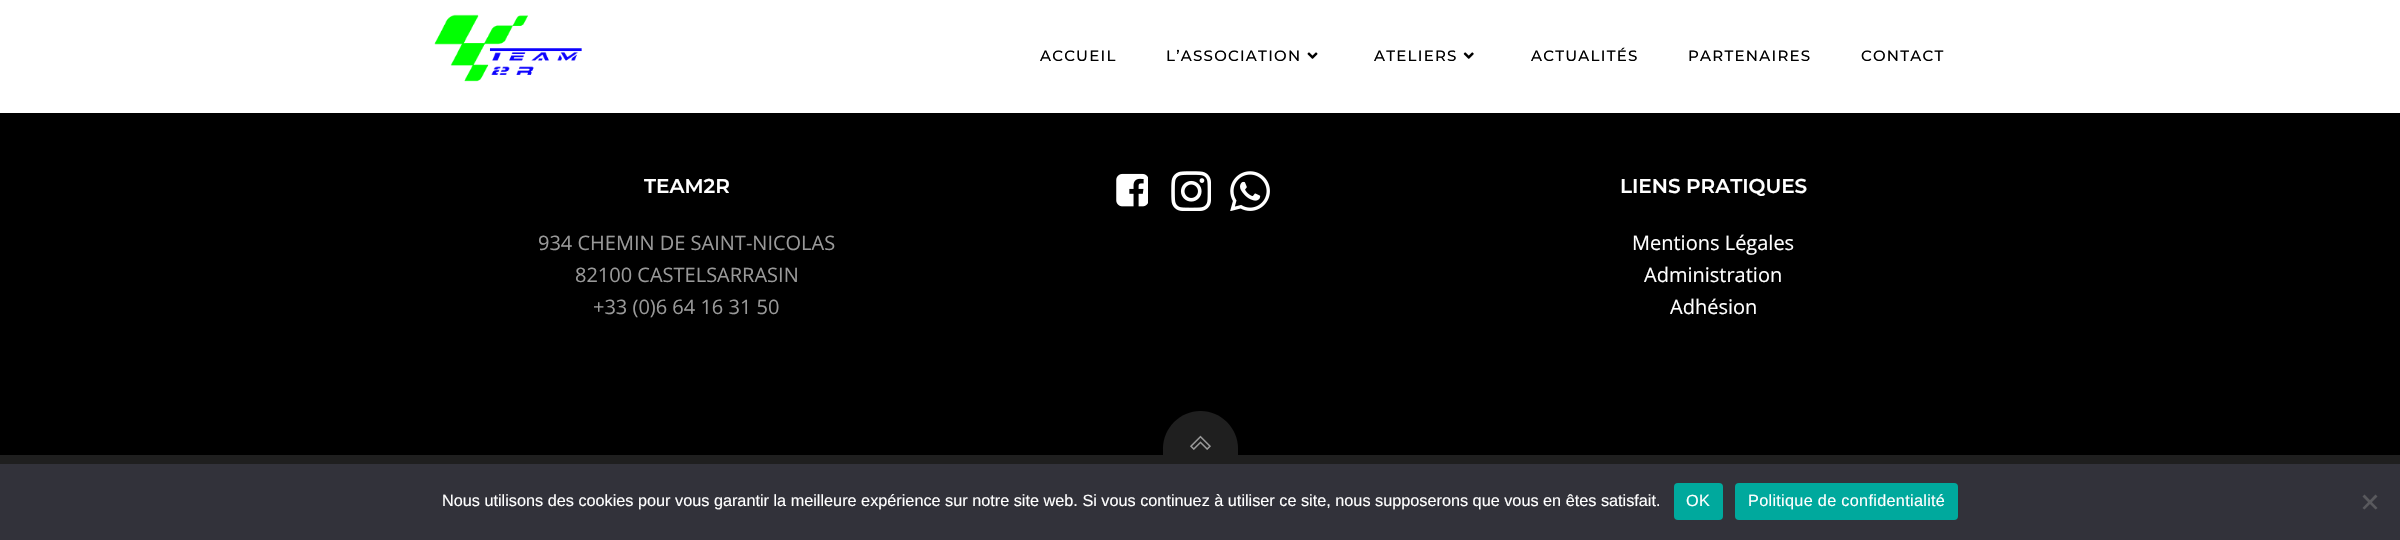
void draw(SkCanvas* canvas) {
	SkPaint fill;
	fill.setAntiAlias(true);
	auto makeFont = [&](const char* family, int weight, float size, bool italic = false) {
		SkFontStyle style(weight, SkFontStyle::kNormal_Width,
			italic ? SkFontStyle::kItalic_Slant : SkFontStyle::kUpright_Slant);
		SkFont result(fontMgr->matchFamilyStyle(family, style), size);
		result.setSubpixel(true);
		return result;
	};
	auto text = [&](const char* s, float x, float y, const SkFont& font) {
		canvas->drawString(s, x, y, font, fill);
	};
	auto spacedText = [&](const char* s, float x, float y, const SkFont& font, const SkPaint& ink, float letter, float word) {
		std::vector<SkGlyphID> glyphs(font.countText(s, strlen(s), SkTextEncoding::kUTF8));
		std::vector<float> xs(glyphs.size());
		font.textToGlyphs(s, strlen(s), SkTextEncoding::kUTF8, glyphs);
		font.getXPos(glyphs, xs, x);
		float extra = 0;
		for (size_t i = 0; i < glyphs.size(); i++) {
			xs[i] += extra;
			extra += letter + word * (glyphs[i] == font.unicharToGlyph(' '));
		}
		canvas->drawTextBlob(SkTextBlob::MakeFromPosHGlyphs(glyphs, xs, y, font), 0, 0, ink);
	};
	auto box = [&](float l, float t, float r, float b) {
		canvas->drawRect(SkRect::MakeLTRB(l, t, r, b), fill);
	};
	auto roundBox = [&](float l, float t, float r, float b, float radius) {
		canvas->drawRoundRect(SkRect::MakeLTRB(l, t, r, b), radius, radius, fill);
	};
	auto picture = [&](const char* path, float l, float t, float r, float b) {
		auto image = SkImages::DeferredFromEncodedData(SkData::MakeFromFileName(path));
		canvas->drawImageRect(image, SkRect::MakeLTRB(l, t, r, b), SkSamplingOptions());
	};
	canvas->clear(0xFF000000);
	fill.setColor(0xFFFFFFFF);
	box(0, 0, 2400, 113);
	picture("image0.png", 434, 14, 582, 82);
	picture("image1.png", 1307, 52, 1318, 59);
	picture("image2.png", 1463, 52, 1474, 59);
	picture("image3.png", 1116, 173, 1148, 207);
	picture("image4.png", 1171, 171, 1211, 211);
	picture("image5.png", 1230, 171, 1270, 211);
	fill.setColor(0xFF1F1F1F);
	canvas->drawPath(SkPathBuilder().moveTo(1200.5f, 411).cubicTo(1221, 411, 1238, 428, 1238, 448.5f).lineTo(1238, 455).lineTo(1163, 455).lineTo(1163, 448.5f).cubicTo(1163, 428, 1180, 411, 1200.5f, 411).close().detach(), fill);
	picture("image6.png", 1190, 435, 1211, 450);
	box(0, 455, 2400, 464);
	fill.setColor(0xFF32323A);
	box(0, 464, 2400, 540);
	fill.setColor(0xFF00A99D);
	roundBox(1674, 483, 1723, 520, 4);
	roundBox(1735, 483, 1958, 520, 4);
	fill.setColor(0xFF59595D);
	canvas->drawPath(SkPathBuilder().moveTo(2375.5f, 494.5f).lineTo(2377.5f, 496.5f).lineTo(2364.5f, 509.5f).lineTo(2362.5f, 508).close().detach(), fill);
	canvas->drawPath(SkPathBuilder().moveTo(2362.5f, 496.5f).lineTo(2364.5f, 494.5f).lineTo(2377.5f, 508).lineTo(2375.5f, 509.5f).close().detach(), fill);
	auto font1 = makeFont("Montserrat", 500, 15);
	fill.setColor(0xFF000000);
	spacedText("ACCUEIL", 1040, 61, font1, fill, 1.25f, 0);
	spacedText("L’ASSOCIATION", 1166, 61, font1, fill, 1.25f, 0);
	spacedText("ATELIERS", 1374, 61, font1, fill, 1.25f, 0);
	spacedText("ACTUALITÉS", 1531, 61, font1, fill, 1.25f, 0);
	spacedText("PARTENAIRES", 1688, 61, font1, fill, 1.25f, 0);
	spacedText("CONTACT", 1861, 61, font1, fill, 1.25f, 0);
	auto font2 = makeFont("Montserrat", 600, 20);
	fill.setColor(0xFFFFFFFF);
	text("TEAM2R", 644, 193, font2);
	auto font3 = makeFont("Open Sans", 400, 20);
	fill.setColor(0xFF999999);
	text("934 CHEMIN DE SAINT-NICOLAS", 538, 250, font3);
	text("82100 CASTELSARRASIN", 575, 282, font3);
	text("+33 (0)6 64 16 31 50", 593, 314, font3);
	fill.setColor(0xFFFFFFFF);
	text("LIENS PRATIQUES", 1620, 193, font2);
	text("Mentions Légales", 1632, 250, font3);
	text("Administration", 1644, 282, font3);
	text("Adhésion", 1670, 314, font3);
	auto font4 = makeFont("Liberation Sans", 400, 16.25f);
	text("Nous utilisons des cookies pour vous garantir la meilleure expérience sur notre site web. Si vous continuez à utiliser ce site, nous supposerons que vous en êtes satisfait.", 442, 506, font4);
	spacedText("OK", 1686, 506, font4, fill, 0.3f, 0);
	spacedText("Politique de confidentialité", 1748, 506, font4, fill, 0.3f, 0);
}
